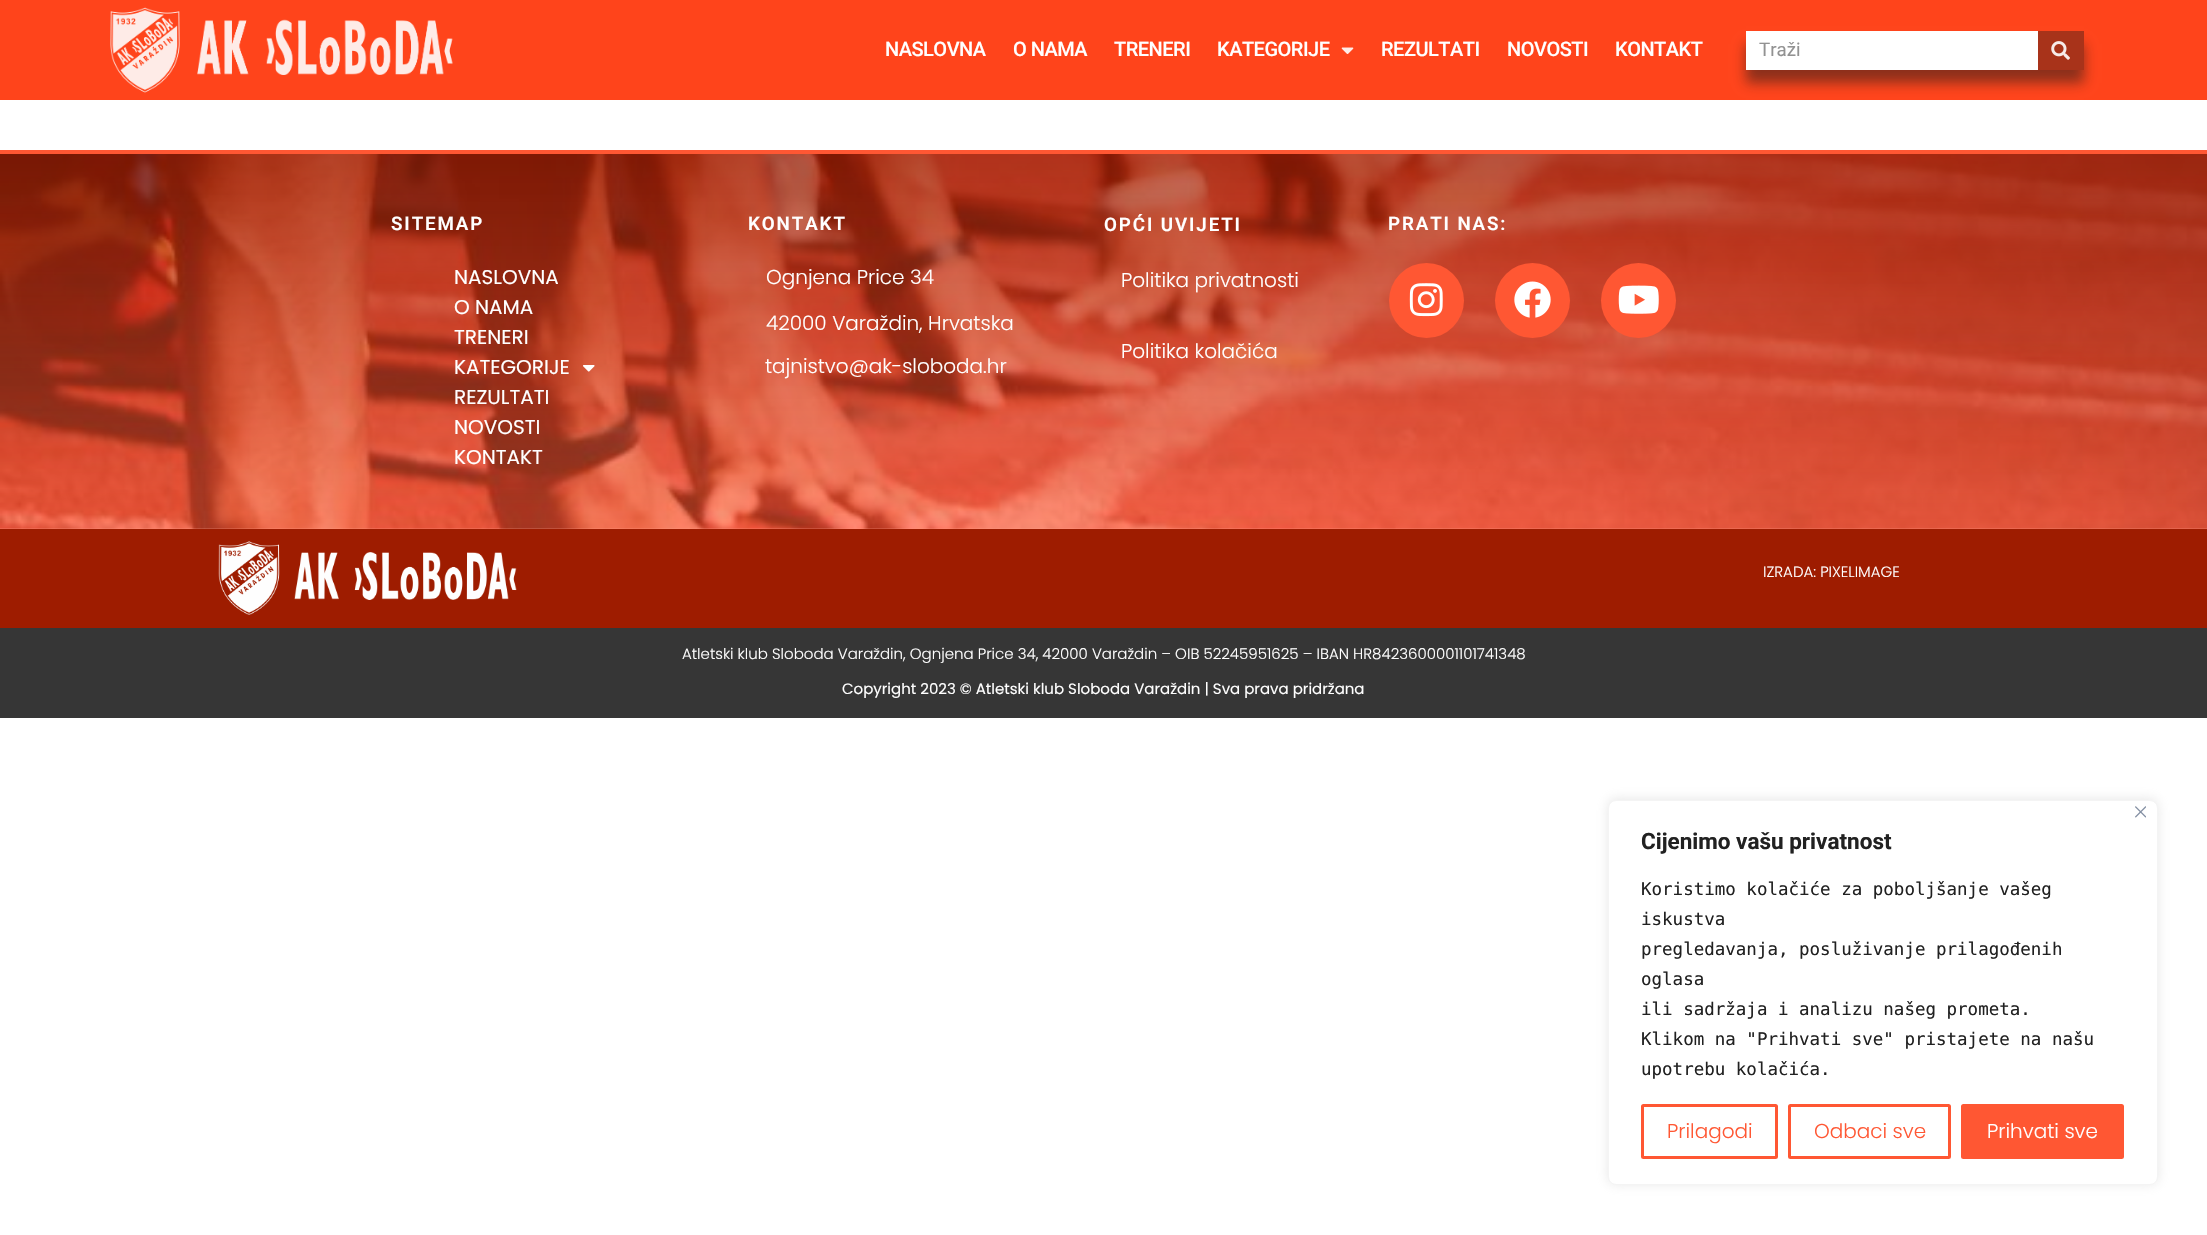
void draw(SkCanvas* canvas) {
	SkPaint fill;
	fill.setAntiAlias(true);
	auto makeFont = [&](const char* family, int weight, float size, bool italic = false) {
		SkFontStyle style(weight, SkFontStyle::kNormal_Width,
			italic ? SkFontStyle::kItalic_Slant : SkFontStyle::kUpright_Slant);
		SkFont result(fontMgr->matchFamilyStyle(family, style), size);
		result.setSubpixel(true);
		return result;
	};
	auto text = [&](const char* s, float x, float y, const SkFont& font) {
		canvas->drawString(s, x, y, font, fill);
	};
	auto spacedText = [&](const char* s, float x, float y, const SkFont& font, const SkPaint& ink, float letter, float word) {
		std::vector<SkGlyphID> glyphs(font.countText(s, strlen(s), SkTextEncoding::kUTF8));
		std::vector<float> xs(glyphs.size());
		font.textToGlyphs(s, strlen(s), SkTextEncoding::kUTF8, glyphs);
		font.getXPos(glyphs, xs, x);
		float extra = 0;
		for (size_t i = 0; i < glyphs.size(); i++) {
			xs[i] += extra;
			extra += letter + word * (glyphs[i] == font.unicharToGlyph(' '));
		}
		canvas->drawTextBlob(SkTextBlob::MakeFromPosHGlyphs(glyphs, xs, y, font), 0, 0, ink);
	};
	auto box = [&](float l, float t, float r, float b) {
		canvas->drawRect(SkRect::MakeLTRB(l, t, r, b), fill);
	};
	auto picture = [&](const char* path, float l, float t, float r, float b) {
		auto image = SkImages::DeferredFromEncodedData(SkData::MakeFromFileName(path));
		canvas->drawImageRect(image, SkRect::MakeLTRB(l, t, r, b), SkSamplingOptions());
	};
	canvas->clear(0xFFFFFFFF);
	fill.setColor(0xFFFF441B);
	box(0, 0, 2207, 100);
	picture("image0.png", 110, 7, 453, 93);
	picture("image1.png", 1341, 47, 1354, 54);
	fill.setColor(0x801A1A1A);
	fill.setMaskFilter(SkMaskFilter::MakeBlur(kNormal_SkBlurStyle, 6));
	canvas->drawRect(SkRect::MakeLTRB(1746, 44, 2084, 83), fill);
	fill.setMaskFilter(nullptr);
	fill.setColor(0xFFFFFFFF);
	box(1746, 31, 2038, 70);
	fill.setColor(0xFFA8331A);
	box(2038, 31, 2084, 70);
	picture("image2.png", 2051, 41, 2070, 60);
	picture("image3.png", 0, 154, 2207, 529);
	fill.setColor(0xFFFF5733);
	box(0, 150, 2207, 154);
	{
		const SkColor colors[] = {0x8FFF5733, 0xB39E1C00};
		const float stops[] = {0, 1};
		const SkPoint ends[] = {{1104, 529}, {1104, 154}};
		fill.setShader(SkGradientShader::MakeLinear(ends, colors, stops, 2, SkTileMode::kClamp));
		fill.setAlpha(255);
	}
	box(0, 154, 2207, 529);
	picture("image4.png", 583, 365, 595, 372);
	fill.setShader(nullptr);
	fill.setColor(0xFFFF5733);
	canvas->drawCircle(1426.5f, 300.5f, 37.5f, fill);
	picture("image5.png", 1409, 283, 1443, 317);
	canvas->drawCircle(1532.5f, 300.5f, 37.5f, fill);
	picture("image6.png", 1514, 281, 1551, 318);
	canvas->drawCircle(1638.5f, 300.5f, 37.5f, fill);
	picture("image7.png", 1618, 285, 1659, 314);
	fill.setColor(0xFF9E1C00);
	box(0, 529, 2207, 628);
	picture("image8.png", 218, 541, 517, 615);
	fill.setColor(0xFF363636);
	box(0, 628, 2207, 718);
	fill.setColor(0x4DACABAB);
	fill.setMaskFilter(SkMaskFilter::MakeBlur(kNormal_SkBlurStyle, 6));
	canvas->drawRoundRect(SkRect::MakeLTRB(1608, 799, 2158, 1184), 8, 8, fill);
	fill.setMaskFilter(nullptr);
	fill.setColor(0xFFFFFFFF);
	canvas->drawRoundRect(SkRect::MakeLTRB(1608.5f, 800.5f, 2157.5f, 1184.5f), 7.5f, 7.5f, fill);
	fill.setStyle(SkPaint::kStroke_Style);
	fill.setStrokeWidth(1);
	fill.setColor(0xFFF4F4F4);
	canvas->drawRoundRect(SkRect::MakeLTRB(1608.5f, 800.5f, 2157.5f, 1184.5f), 7.5f, 7.5f, fill);
	picture("image9.png", 2135, 806, 2146, 818);
	fill.setStrokeWidth(3);
	fill.setColor(0xFFFF5733);
	canvas->drawRoundRect(SkRect::MakeLTRB(1642.5f, 1105.5f, 1776.5f, 1157.5f), 1, 1, fill);
	canvas->drawRoundRect(SkRect::MakeLTRB(1789.5f, 1105.5f, 1949.5f, 1157.5f), 1, 1, fill);
	fill.setStyle(SkPaint::kFill_Style);
	canvas->drawRoundRect(SkRect::MakeLTRB(1962.5f, 1105.5f, 2122.5f, 1157.5f), 1, 1, fill);
	fill.setStyle(SkPaint::kStroke_Style);
	canvas->drawRoundRect(SkRect::MakeLTRB(1962.5f, 1105.5f, 2122.5f, 1157.5f), 1, 1, fill);
	auto font1 = makeFont("Roboto", 500, 20);
	fill.setStyle(SkPaint::kFill_Style);
	fill.setColor(0xFFFFFFFF);
	spacedText("NASLOVNA", 885, 56, font1, fill, -0.5f, 0);
	spacedText("O NAMA", 1013, 56, font1, fill, -0.5f, 0);
	spacedText("TRENERI", 1114, 56, font1, fill, -0.5f, 0);
	spacedText("KATEGORIJE", 1217, 56, font1, fill, -0.5f, 0);
	spacedText("REZULTATI", 1381, 56, font1, fill, -0.5f, 0);
	spacedText("NOVOSTI", 1507, 56, font1, fill, -0.5f, 0);
	spacedText("KONTAKT", 1615, 56, font1, fill, -0.5f, 0);
	auto font2 = makeFont("Roboto", 400, 18.75f);
	fill.setColor(0xFF929292);
	text("Traži", 1759, 56, font2);
	auto font3 = makeFont("Roboto", 600, 18.75f);
	fill.setColor(0xFFFFFFFF);
	spacedText("SITEMAP", 391, 230, font3, fill, 1.9f, 0);
	auto font4 = makeFont("Poppins", 400, 20);
	text("NASLOVNA", 454, 284, font4);
	text("O NAMA", 454, 314, font4);
	text("TRENERI", 454, 344, font4);
	text("KATEGORIJE", 454, 374, font4);
	text("REZULTATI", 454, 404, font4);
	text("NOVOSTI", 454, 434, font4);
	text("KONTAKT", 454, 464, font4);
	spacedText("KONTAKT", 748, 230, font3, fill, 1.9f, 0);
	auto font5 = makeFont("Poppins", 300, 20);
	text("Ognjena Price 34", 766, 284, font5);
	text("42000 Varaždin, Hrvatska", 766, 330, font5);
	text("tajnistvo@ak-sloboda.hr", 765, 373, font5);
	spacedText("OPĆI UVIJETI", 1104, 231, font3, fill, 1.9f, 0);
	text("Politika privatnosti", 1121, 287, font5);
	text("Politika kolačića", 1121, 358, font5);
	spacedText("PRATI NAS:", 1388, 230, font3, fill, 1.9f, 0);
	auto font6 = makeFont("Poppins", 300, 15);
	text("IZRADA: PIXELIMAGE", 1763, 577, font6);
	text("Atletski klub Sloboda Varaždin, Ognjena Price 34, 42000 Varaždin – OIB 52245951625 – IBAN HR8423600001101741348", 682, 659, font6);
	auto font7 = makeFont("Poppins", 400, 15);
	text("Copyright 2023 © Atletski klub Sloboda Varaždin | Sva prava pridržana", 842, 694, font7);
	auto font8 = makeFont("Roboto", 700, 22.5f);
	fill.setColor(0xFF212121);
	text("Cijenimo vašu privatnost", 1641, 849, font8);
	auto font9 = makeFont("DejaVu Sans Mono", 400, 17.5f);
	text("Koristimo kolačiće za poboljšanje vašeg", 1641, 895, font9);
	text("iskustva", 1641, 925, font9);
	text("pregledavanja, posluživanje prilagođenih", 1641, 955, font9);
	text("oglasa", 1641, 985, font9);
	text("ili sadržaja i analizu našeg prometa.", 1641, 1015, font9);
	text("Klikom na \"Prihvati sve\" pristajete na našu", 1641, 1045, font9);
	text("upotrebu kolačića.", 1641, 1075, font9);
	fill.setColor(0xFFFF5733);
	text("Prilagodi", 1667, 1138, font5);
	text("Odbaci sve", 1814, 1138, font5);
	fill.setColor(0xFFFFFFFF);
	text("Prihvati sve", 1987, 1138, font5);
}
